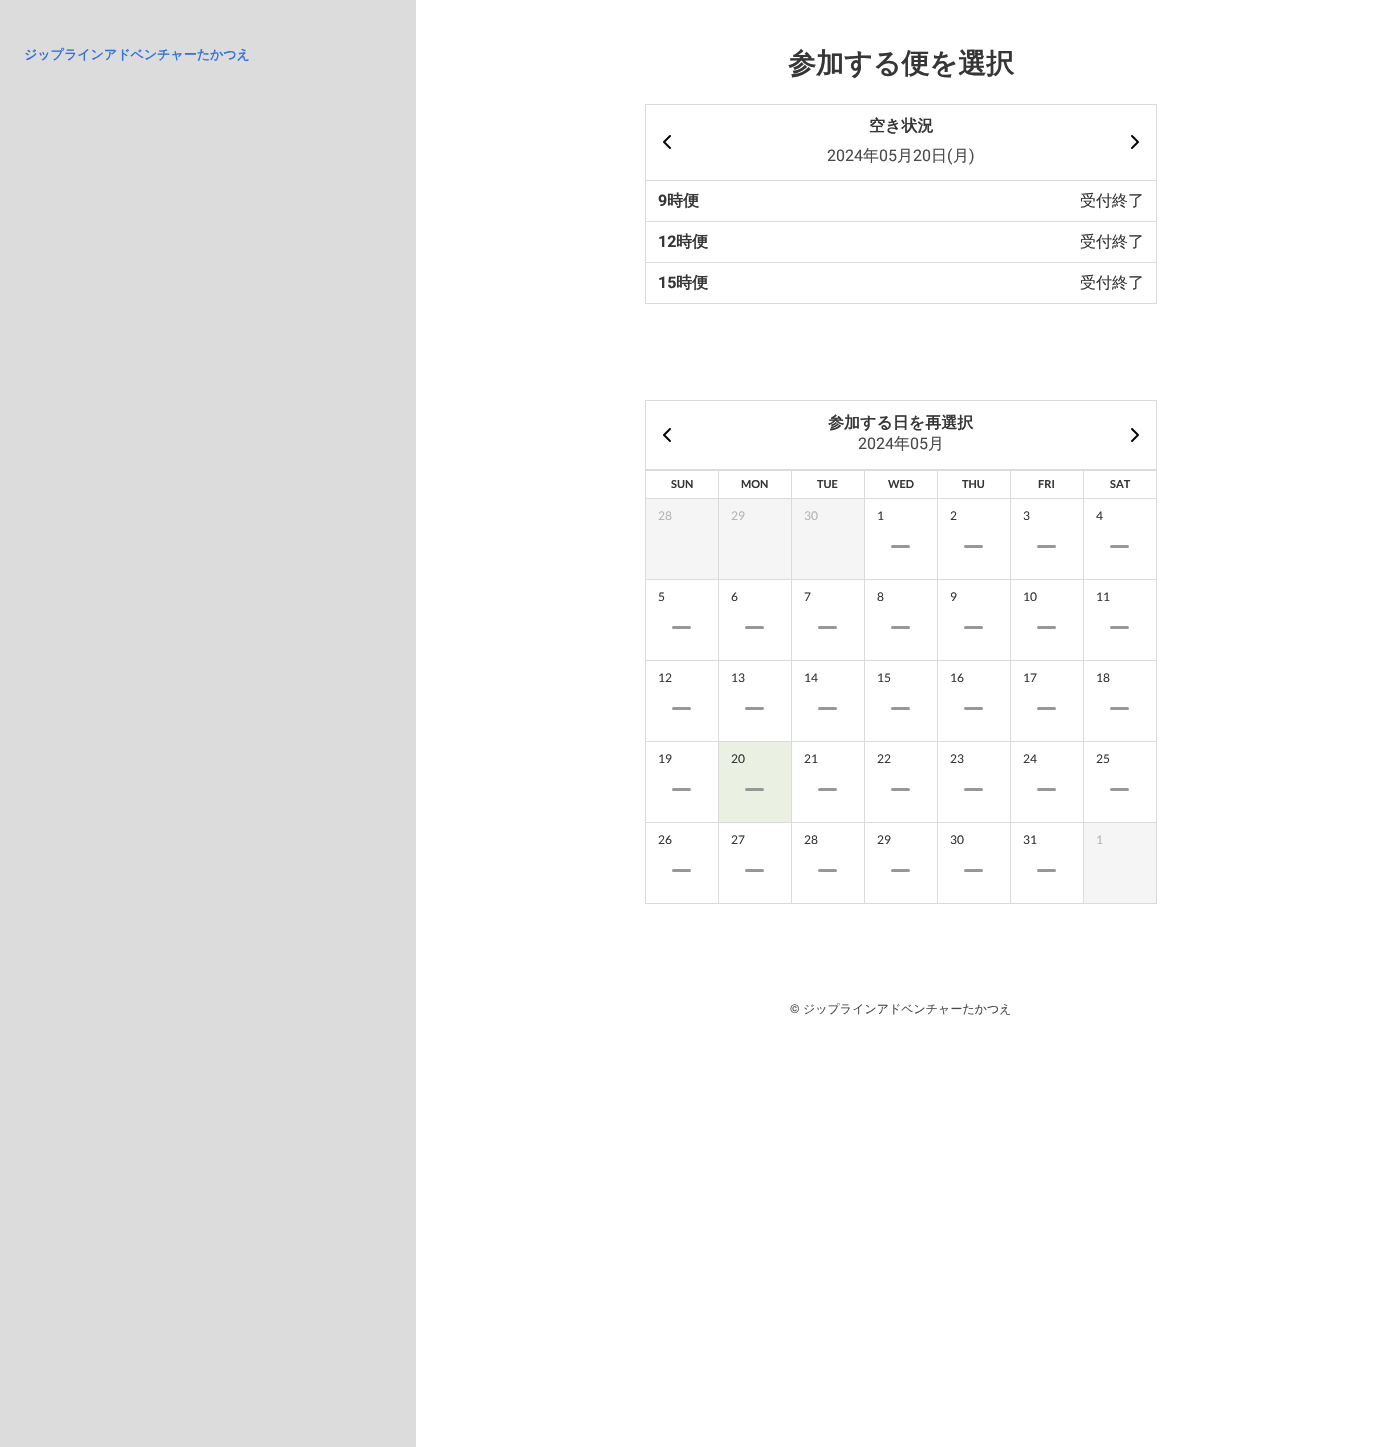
void draw(SkCanvas* canvas) {
	SkPaint fill;
	fill.setAntiAlias(true);
	auto makeFont = [&](const char* family, int weight, float size, bool italic = false) {
		SkFontStyle style(weight, SkFontStyle::kNormal_Width,
			italic ? SkFontStyle::kItalic_Slant : SkFontStyle::kUpright_Slant);
		SkFont result(fontMgr->matchFamilyStyle(family, style), size);
		result.setSubpixel(true);
		return result;
	};
	auto text = [&](const char* s, float x, float y, const SkFont& font) {
		canvas->drawString(s, x, y, font, fill);
	};
	auto box = [&](float l, float t, float r, float b) {
		canvas->drawRect(SkRect::MakeLTRB(l, t, r, b), fill);
	};
	auto picture = [&](const char* path, float l, float t, float r, float b) {
		auto image = SkImages::DeferredFromEncodedData(SkData::MakeFromFileName(path));
		canvas->drawImageRect(image, SkRect::MakeLTRB(l, t, r, b), SkSamplingOptions());
	};
	canvas->clear(0xFFFFFFFF);
	fill.setColor(0xFFDCDCDC);
	box(0, 0, 416, 1447);
	fill.setStyle(SkPaint::kStroke_Style);
	fill.setStrokeWidth(1);
	fill.setColor(0xFFDBDBDB);
	canvas->drawRect(SkRect::MakeLTRB(645.5f, 104.5f, 1156.5f, 303.5f), fill);
	picture("image0.png", 663, 135, 671, 149);
	picture("image1.png", 1131, 135, 1139, 149);
	fill.setStyle(SkPaint::kFill_Style);
	box(646, 180, 1156, 181);
	box(645, 221, 1156, 222);
	box(645, 262, 1156, 263);
	fill.setStyle(SkPaint::kStroke_Style);
	canvas->drawRect(SkRect::MakeLTRB(645.5f, 400.5f, 1156.5f, 469.5f), fill);
	picture("image0.png", 663, 428, 671, 442);
	picture("image1.png", 1131, 428, 1139, 442);
	fill.setStyle(SkPaint::kFill_Style);
	box(1083, 470, 1157, 471);
	box(1083, 498, 1157, 499);
	box(1083, 579, 1157, 580);
	box(1083, 660, 1157, 661);
	box(1083, 741, 1157, 742);
	box(1083, 822, 1157, 823);
	box(1156, 822, 1157, 904);
	box(1083, 903, 1157, 904);
	box(1083, 822, 1084, 904);
	box(1010, 822, 1084, 823);
	box(1083, 741, 1084, 823);
	box(1010, 741, 1084, 742);
	box(1083, 660, 1084, 742);
	box(1010, 660, 1084, 661);
	box(1083, 579, 1084, 661);
	box(1010, 579, 1084, 580);
	box(1083, 498, 1084, 580);
	box(1010, 498, 1084, 499);
	box(1083, 470, 1084, 499);
	box(1010, 470, 1084, 471);
	box(1010, 903, 1084, 904);
	box(1010, 822, 1011, 904);
	box(937, 822, 1011, 823);
	box(1010, 741, 1011, 823);
	box(937, 741, 1011, 742);
	box(1010, 660, 1011, 742);
	box(937, 660, 1011, 661);
	box(1010, 579, 1011, 661);
	box(937, 579, 1011, 580);
	box(1010, 498, 1011, 580);
	box(937, 498, 1011, 499);
	box(1010, 470, 1011, 499);
	box(937, 470, 1011, 471);
	box(937, 903, 1011, 904);
	box(937, 822, 938, 904);
	box(864, 822, 938, 823);
	box(937, 741, 938, 823);
	box(864, 741, 938, 742);
	box(937, 660, 938, 742);
	box(864, 660, 938, 661);
	box(937, 579, 938, 661);
	box(864, 579, 938, 580);
	box(937, 498, 938, 580);
	box(864, 498, 938, 499);
	box(937, 470, 938, 499);
	box(864, 470, 938, 471);
	box(864, 903, 938, 904);
	box(864, 822, 865, 904);
	box(791, 822, 865, 823);
	box(864, 741, 865, 823);
	box(791, 741, 865, 742);
	box(864, 660, 865, 742);
	box(791, 660, 865, 661);
	box(864, 579, 865, 661);
	box(791, 579, 865, 580);
	box(864, 498, 865, 580);
	box(791, 498, 865, 499);
	box(864, 470, 865, 499);
	box(791, 470, 865, 471);
	box(791, 903, 865, 904);
	box(791, 822, 792, 904);
	box(718, 822, 792, 823);
	box(791, 741, 792, 823);
	box(718, 741, 792, 742);
	box(791, 660, 792, 742);
	box(718, 660, 792, 661);
	box(791, 579, 792, 661);
	box(718, 579, 792, 580);
	box(791, 498, 792, 580);
	box(718, 498, 792, 499);
	box(791, 470, 792, 499);
	box(718, 470, 792, 471);
	box(718, 903, 792, 904);
	box(718, 822, 719, 904);
	box(645, 822, 719, 823);
	box(718, 741, 719, 823);
	box(645, 741, 719, 742);
	box(718, 660, 719, 742);
	box(645, 660, 719, 661);
	box(718, 579, 719, 661);
	box(645, 579, 719, 580);
	box(718, 498, 719, 580);
	box(645, 498, 719, 499);
	box(718, 470, 719, 499);
	box(645, 470, 719, 471);
	box(645, 903, 719, 904);
	box(645, 822, 646, 904);
	box(645, 741, 646, 823);
	box(645, 660, 646, 742);
	box(645, 579, 646, 661);
	box(645, 498, 646, 580);
	box(645, 470, 646, 499);
	box(1156, 741, 1157, 823);
	box(1156, 660, 1157, 742);
	box(1156, 579, 1157, 661);
	box(1156, 498, 1157, 580);
	box(1156, 470, 1157, 499);
	fill.setColor(0xFFF5F5F5);
	box(646, 499, 718, 579);
	box(719, 499, 791, 579);
	box(792, 499, 864, 579);
	fill.setStyle(SkPaint::kStroke_Style);
	fill.setStrokeWidth(3);
	fill.setStrokeCap(SkPaint::kRound_Cap);
	fill.setColor(0xFF979797);
	canvas->drawPath(SkPathBuilder().moveTo(892.5f, 546.5f).lineTo(908.5f, 546.5f).detach(), fill);
	canvas->drawPath(SkPathBuilder().moveTo(965.5f, 546.5f).lineTo(981.5f, 546.5f).detach(), fill);
	canvas->drawPath(SkPathBuilder().moveTo(1038.5f, 546.5f).lineTo(1054.5f, 546.5f).detach(), fill);
	canvas->drawPath(SkPathBuilder().moveTo(1111.5f, 546.5f).lineTo(1127.5f, 546.5f).detach(), fill);
	canvas->drawPath(SkPathBuilder().moveTo(673.5f, 627.5f).lineTo(689.5f, 627.5f).detach(), fill);
	canvas->drawPath(SkPathBuilder().moveTo(746.5f, 627.5f).lineTo(762.5f, 627.5f).detach(), fill);
	canvas->drawPath(SkPathBuilder().moveTo(819.5f, 627.5f).lineTo(835.5f, 627.5f).detach(), fill);
	canvas->drawPath(SkPathBuilder().moveTo(892.5f, 627.5f).lineTo(908.5f, 627.5f).detach(), fill);
	canvas->drawPath(SkPathBuilder().moveTo(965.5f, 627.5f).lineTo(981.5f, 627.5f).detach(), fill);
	canvas->drawPath(SkPathBuilder().moveTo(1038.5f, 627.5f).lineTo(1054.5f, 627.5f).detach(), fill);
	canvas->drawPath(SkPathBuilder().moveTo(1111.5f, 627.5f).lineTo(1127.5f, 627.5f).detach(), fill);
	canvas->drawPath(SkPathBuilder().moveTo(673.5f, 708.5f).lineTo(689.5f, 708.5f).detach(), fill);
	canvas->drawPath(SkPathBuilder().moveTo(746.5f, 708.5f).lineTo(762.5f, 708.5f).detach(), fill);
	canvas->drawPath(SkPathBuilder().moveTo(819.5f, 708.5f).lineTo(835.5f, 708.5f).detach(), fill);
	canvas->drawPath(SkPathBuilder().moveTo(892.5f, 708.5f).lineTo(908.5f, 708.5f).detach(), fill);
	canvas->drawPath(SkPathBuilder().moveTo(965.5f, 708.5f).lineTo(981.5f, 708.5f).detach(), fill);
	canvas->drawPath(SkPathBuilder().moveTo(1038.5f, 708.5f).lineTo(1054.5f, 708.5f).detach(), fill);
	canvas->drawPath(SkPathBuilder().moveTo(1111.5f, 708.5f).lineTo(1127.5f, 708.5f).detach(), fill);
	canvas->drawPath(SkPathBuilder().moveTo(673.5f, 789.5f).lineTo(689.5f, 789.5f).detach(), fill);
	fill.setStyle(SkPaint::kFill_Style);
	fill.setColor(0xFFEAF1E2);
	box(719, 742, 791, 822);
	fill.setStyle(SkPaint::kStroke_Style);
	fill.setColor(0xFF979797);
	canvas->drawPath(SkPathBuilder().moveTo(746.5f, 789.5f).lineTo(762.5f, 789.5f).detach(), fill);
	canvas->drawPath(SkPathBuilder().moveTo(819.5f, 789.5f).lineTo(835.5f, 789.5f).detach(), fill);
	canvas->drawPath(SkPathBuilder().moveTo(892.5f, 789.5f).lineTo(908.5f, 789.5f).detach(), fill);
	canvas->drawPath(SkPathBuilder().moveTo(965.5f, 789.5f).lineTo(981.5f, 789.5f).detach(), fill);
	canvas->drawPath(SkPathBuilder().moveTo(1038.5f, 789.5f).lineTo(1054.5f, 789.5f).detach(), fill);
	canvas->drawPath(SkPathBuilder().moveTo(1111.5f, 789.5f).lineTo(1127.5f, 789.5f).detach(), fill);
	canvas->drawPath(SkPathBuilder().moveTo(673.5f, 870.5f).lineTo(689.5f, 870.5f).detach(), fill);
	canvas->drawPath(SkPathBuilder().moveTo(746.5f, 870.5f).lineTo(762.5f, 870.5f).detach(), fill);
	canvas->drawPath(SkPathBuilder().moveTo(819.5f, 870.5f).lineTo(835.5f, 870.5f).detach(), fill);
	canvas->drawPath(SkPathBuilder().moveTo(892.5f, 870.5f).lineTo(908.5f, 870.5f).detach(), fill);
	canvas->drawPath(SkPathBuilder().moveTo(965.5f, 870.5f).lineTo(981.5f, 870.5f).detach(), fill);
	canvas->drawPath(SkPathBuilder().moveTo(1038.5f, 870.5f).lineTo(1054.5f, 870.5f).detach(), fill);
	fill.setStyle(SkPaint::kFill_Style);
	fill.setColor(0xFFF5F5F5);
	box(1084, 823, 1156, 903);
	auto font1 = makeFont("WenQuanYi Zen Hei", 700, 13);
	fill.setColor(0xFF3273DC);
	text("ジップラインアドベンチャーたかつえ", 24, 59, font1);
	auto font2 = makeFont("WenQuanYi Zen Hei", 700, 28);
	fill.setColor(0xFF363636);
	text("参加する便を選択", 788, 73, font2);
	auto font3 = makeFont("WenQuanYi Zen Hei", 700, 16);
	text("空き状況", 869, 131, font3);
	auto font4 = makeFont("Roboto", 400, 16);
	fill.setColor(0xFF4A4A4A);
	text("2024", 827, 161, font4);
	auto font5 = makeFont("WenQuanYi Zen Hei", 500, 16);
	text("年", 863, 161, font5);
	text("05", 879, 161, font4);
	text("月", 897, 161, font5);
	text("20", 913, 161, font4);
	text("日", 931, 161, font5);
	text("(", 947, 161, font4);
	text("月", 953, 161, font5);
	text(")", 969, 161, font4);
	auto font6 = makeFont("Roboto", 700, 16);
	fill.setColor(0xFF363636);
	text("9", 658, 206, font6);
	text("時便", 667, 206, font3);
	text("受付終了", 1080, 206, font5);
	text("12", 658, 247, font6);
	text("時便", 676, 247, font3);
	text("受付終了", 1080, 247, font5);
	text("15", 658, 288, font6);
	text("時便", 676, 288, font3);
	text("受付終了", 1080, 288, font5);
	text("参加する日を再選択", 828, 428, font3);
	fill.setColor(0xFF4A4A4A);
	text("2024", 858, 449, font4);
	text("年", 894, 449, font5);
	text("05", 910, 449, font4);
	text("月", 928, 449, font5);
	auto font7 = makeFont("Lato", 700, 11);
	fill.setColor(0xFF363636);
	text("SUN", 671, 488, font7);
	text("MON", 741, 488, font7);
	text("TUE", 817, 488, font7);
	text("WED", 888, 488, font7);
	text("THU", 962, 488, font7);
	text("FRI", 1038, 488, font7);
	text("SAT", 1110, 488, font7);
	auto font8 = makeFont("Lato", 400, 12);
	fill.setColor(0xFFB5B5B5);
	text("28", 658, 520, font8);
	text("29", 731, 520, font8);
	text("30", 804, 520, font8);
	fill.setColor(0xFF363636);
	text("1", 877, 520, font8);
	text("2", 950, 520, font8);
	text("3", 1023, 520, font8);
	text("4", 1096, 520, font8);
	text("5", 658, 601, font8);
	text("6", 731, 601, font8);
	text("7", 804, 601, font8);
	text("8", 877, 601, font8);
	text("9", 950, 601, font8);
	text("10", 1023, 601, font8);
	text("11", 1096, 601, font8);
	text("12", 658, 682, font8);
	text("13", 731, 682, font8);
	text("14", 804, 682, font8);
	text("15", 877, 682, font8);
	text("16", 950, 682, font8);
	text("17", 1023, 682, font8);
	text("18", 1096, 682, font8);
	text("19", 658, 763, font8);
	text("20", 731, 763, font8);
	text("21", 804, 763, font8);
	text("22", 877, 763, font8);
	text("23", 950, 763, font8);
	text("24", 1023, 763, font8);
	text("25", 1096, 763, font8);
	text("26", 658, 844, font8);
	text("27", 731, 844, font8);
	text("28", 804, 844, font8);
	text("29", 877, 844, font8);
	text("30", 950, 844, font8);
	text("31", 1023, 844, font8);
	fill.setColor(0xFFB5B5B5);
	text("1", 1096, 844, font8);
	auto font9 = makeFont("Roboto", 400, 12);
	fill.setColor(0xFF4A4A4A);
	text("©", 790, 1013, font9);
	auto font10 = makeFont("WenQuanYi Zen Hei", 500, 12);
	text("ジップラインアドベンチャーたかつえ", 803, 1013, font10);
}
